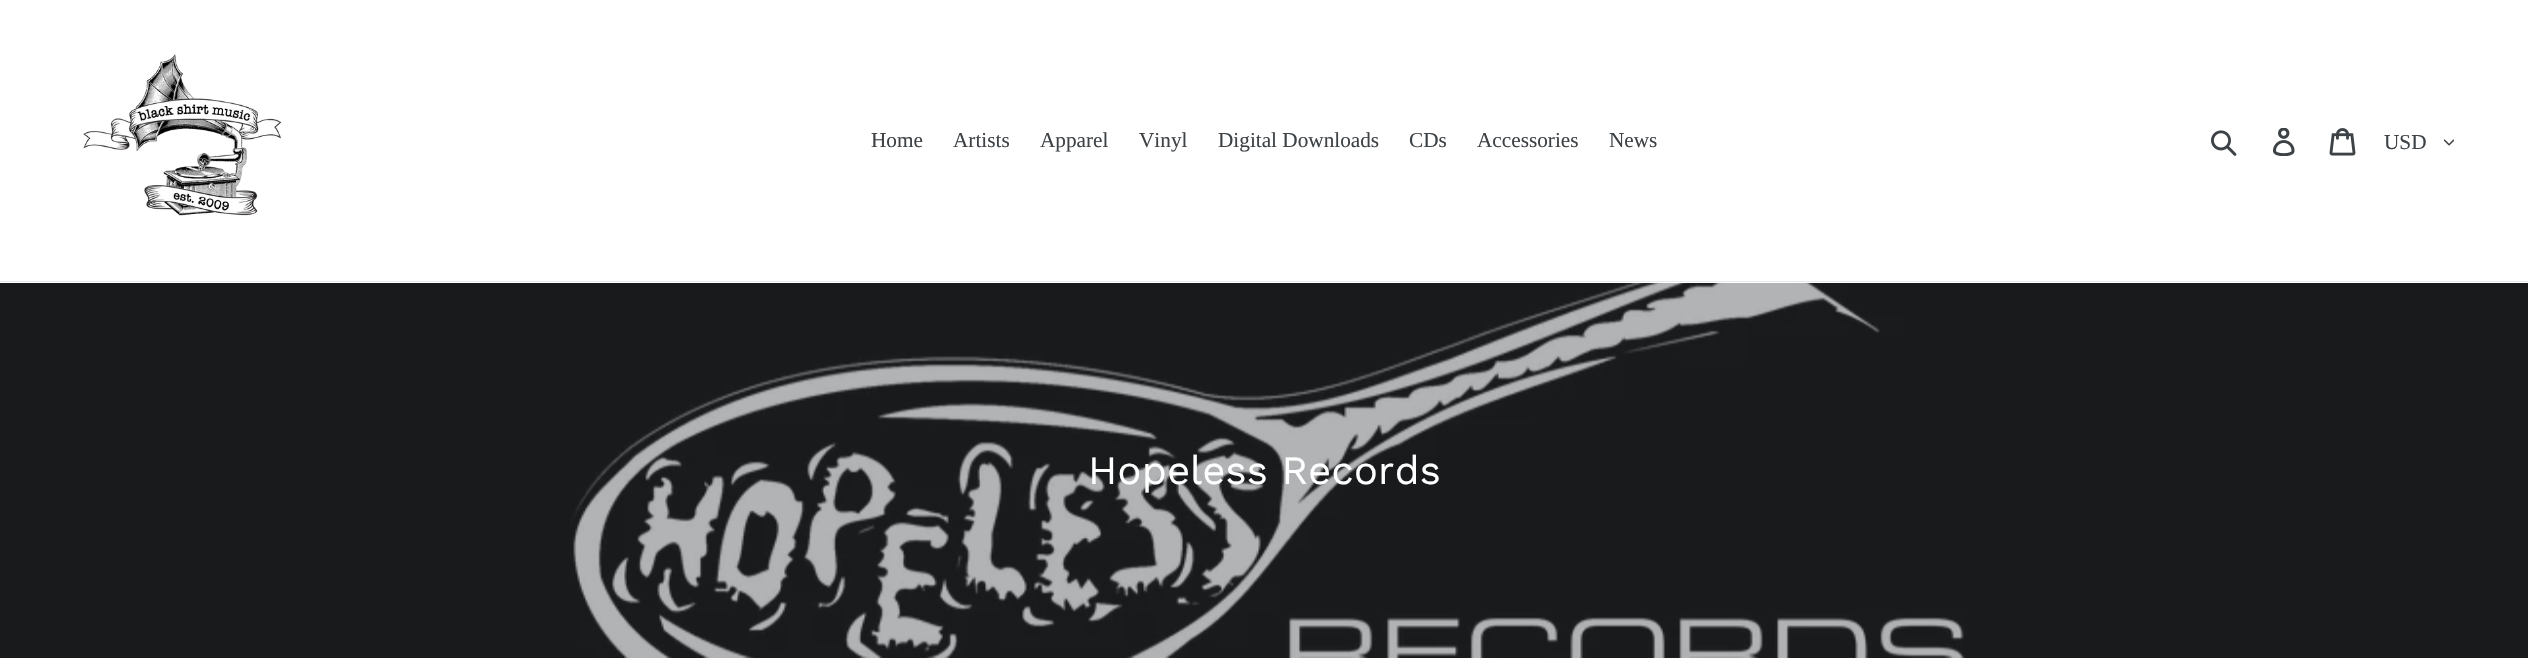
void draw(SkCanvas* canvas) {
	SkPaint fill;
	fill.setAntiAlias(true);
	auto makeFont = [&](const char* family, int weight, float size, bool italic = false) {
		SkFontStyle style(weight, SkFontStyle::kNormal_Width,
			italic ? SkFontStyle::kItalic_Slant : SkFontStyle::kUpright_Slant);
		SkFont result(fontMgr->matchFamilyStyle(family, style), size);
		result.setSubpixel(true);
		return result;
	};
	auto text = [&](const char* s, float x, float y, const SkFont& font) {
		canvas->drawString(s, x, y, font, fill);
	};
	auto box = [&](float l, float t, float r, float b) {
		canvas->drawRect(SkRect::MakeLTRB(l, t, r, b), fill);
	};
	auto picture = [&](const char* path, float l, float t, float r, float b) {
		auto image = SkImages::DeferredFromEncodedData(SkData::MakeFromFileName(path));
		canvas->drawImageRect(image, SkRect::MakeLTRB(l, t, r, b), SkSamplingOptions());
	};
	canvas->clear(0xFFFFFFFF);
	fill.setColor(0xFFE8E9EB);
	box(0, 281, 2528, 282);
	picture("image0.png", 83, 54, 282, 216);
	picture("image1.png", 2211, 130, 2237, 156);
	picture("image2.png", 2272, 128, 2295, 156);
	picture("image3.png", 2329, 128, 2356, 156);
	picture("image4.png", 2444, 139, 2454, 146);
	picture("image5.png", 0, 283, 2528, 658);
	auto font1 = makeFont("Liberation Serif", 400, 21.25f);
	fill.setColor(0xFF3D4246);
	text("Home", 871, 147, font1);
	text("Artists", 953, 147, font1);
	text("Apparel", 1040, 147, font1);
	text("Vinyl", 1139, 147, font1);
	text("Digital Downloads", 1218, 147, font1);
	text("CDs", 1409, 147, font1);
	text("Accessories", 1477, 147, font1);
	text("News", 1609, 147, font1);
	text("USD", 2384, 149, font1);
	auto font2 = makeFont("Work Sans", 400, 40);
	fill.setColor(0xFFFFFFFF);
	text("Hopeless Records", 1088, 484, font2);
}
